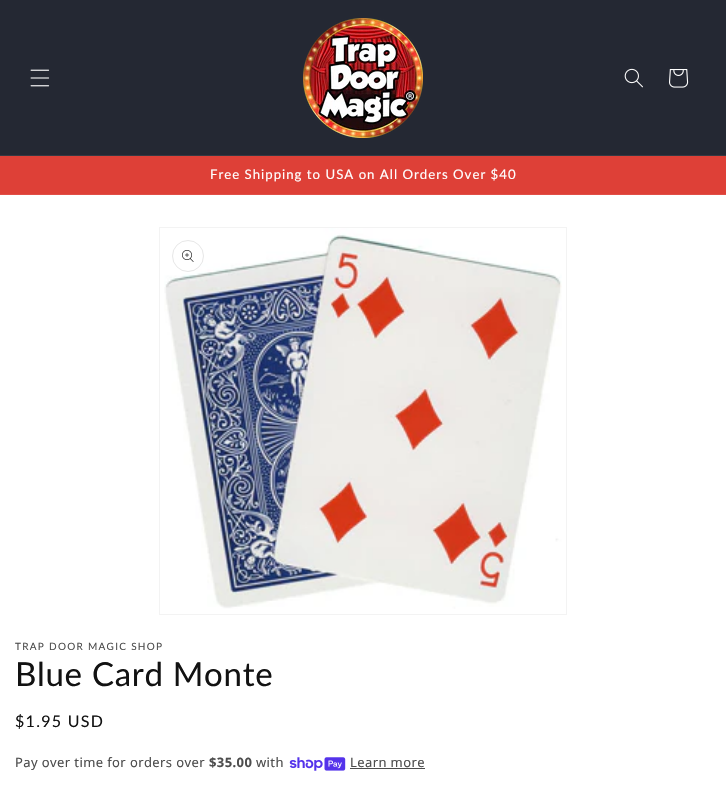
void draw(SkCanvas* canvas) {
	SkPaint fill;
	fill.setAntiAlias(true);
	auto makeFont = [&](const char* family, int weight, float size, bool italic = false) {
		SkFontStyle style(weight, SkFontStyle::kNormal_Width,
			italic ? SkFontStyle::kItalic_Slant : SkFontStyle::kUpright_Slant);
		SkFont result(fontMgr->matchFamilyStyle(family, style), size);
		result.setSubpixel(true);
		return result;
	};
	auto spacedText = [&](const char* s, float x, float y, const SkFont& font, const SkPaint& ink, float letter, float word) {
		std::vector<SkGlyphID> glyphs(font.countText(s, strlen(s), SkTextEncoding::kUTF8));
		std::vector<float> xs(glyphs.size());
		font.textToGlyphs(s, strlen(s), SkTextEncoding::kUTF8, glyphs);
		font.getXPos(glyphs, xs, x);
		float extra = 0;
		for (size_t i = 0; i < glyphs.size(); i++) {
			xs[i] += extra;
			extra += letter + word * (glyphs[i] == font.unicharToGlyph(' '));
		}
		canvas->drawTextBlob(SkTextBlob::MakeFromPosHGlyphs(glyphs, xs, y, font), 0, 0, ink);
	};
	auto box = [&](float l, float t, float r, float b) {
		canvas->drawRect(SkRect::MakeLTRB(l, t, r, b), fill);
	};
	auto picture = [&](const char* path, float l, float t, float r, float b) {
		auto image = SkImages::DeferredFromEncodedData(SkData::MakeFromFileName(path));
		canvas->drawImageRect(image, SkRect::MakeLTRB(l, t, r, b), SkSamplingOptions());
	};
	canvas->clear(0xFFFFFFFF);
	fill.setColor(0xFF242833);
	box(0, 0, 726, 155);
	fill.setColor(0xFF363943);
	box(0, 155, 726, 156);
	picture("image0.png", 30, 69, 50, 87);
	picture("image1.png", 303, 18, 423, 138);
	picture("image2.png", 624, 68, 643, 88);
	picture("image3.png", 669, 69, 689, 88);
	fill.setColor(0xFFDE4037);
	box(0, 156, 726, 194);
	fill.setColor(0xFFE14F47);
	box(0, 194, 726, 195);
	fill.setStyle(SkPaint::kStroke_Style);
	fill.setStrokeWidth(1);
	fill.setColor(0xFFF3F3F3);
	canvas->drawRect(SkRect::MakeLTRB(159.5f, 227.5f, 566.5f, 614.5f), fill);
	picture("image4.png", 164, 228, 562, 609);
	fill.setColor(0xFFE7E7E7);
	canvas->drawCircle(188, 256, 15.5f, fill);
	picture("image5.png", 182, 250, 194, 262);
	picture("image6.png", 289, 757, 346, 771);
	fill.setStyle(SkPaint::kFill_Style);
	fill.setColor(0xFF4D4D4D);
	box(350, 768, 425, 769);
	auto font1 = makeFont("Lato", 400, 13.2f);
	fill.setColor(0xFFFFFFFF);
	spacedText("Free Shipping to USA on All Orders Over $40", 210, 179, font1, fill, 1, 0);
	auto font2 = makeFont("Lato", 400, 10);
	fill.setColor(0xFF4D4D4D);
	spacedText("TRAP DOOR MAGIC SHOP", 15, 650, font2, fill, 1.3f, 0);
	auto font3 = makeFont("Lato", 400, 33);
	fill.setColor(0xFF121212);
	spacedText("Blue Card Monte", 15, 686, font3, fill, 0.7f, 0);
	auto font4 = makeFont("Lato", 400, 16);
	spacedText("$1.95 USD", 15, 727, font4, fill, 1.3f, 0);
	auto font5 = makeFont("Noto Sans", 400, 13);
	fill.setColor(0xFF4D4D4D);
	spacedText("Pay over time for orders over", 15, 767, font5, fill, 0.4f, 0);
	auto font6 = makeFont("Noto Sans", 700, 13);
	spacedText("$35.00", 209, 767, font6, fill, 0.4f, 0);
	spacedText("with", 256, 767, font5, fill, 0.4f, 0);
	spacedText("Learn more", 350, 767, font5, fill, 0.4f, 0);
}
